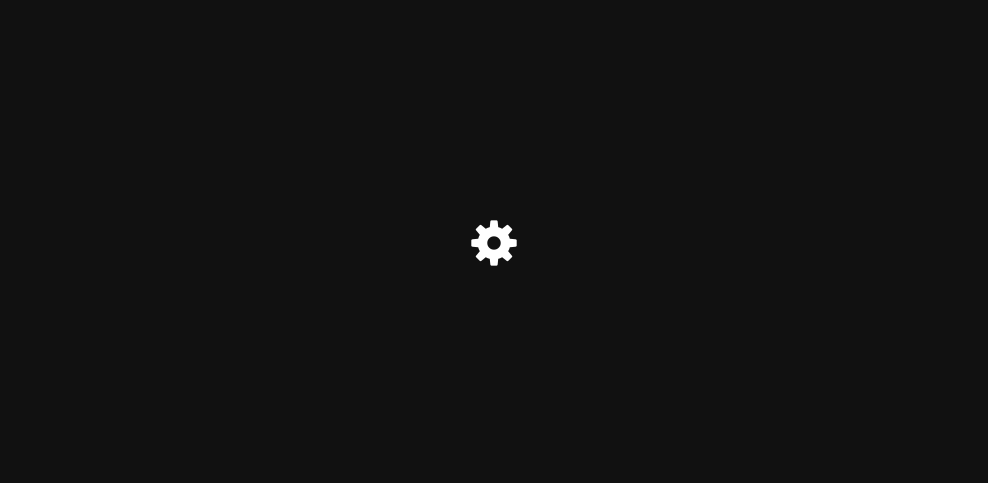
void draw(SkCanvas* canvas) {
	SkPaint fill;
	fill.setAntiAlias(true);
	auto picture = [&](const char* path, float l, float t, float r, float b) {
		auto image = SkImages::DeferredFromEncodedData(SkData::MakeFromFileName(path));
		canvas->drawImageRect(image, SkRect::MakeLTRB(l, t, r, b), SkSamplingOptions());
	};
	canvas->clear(0xFF111111);
	picture("image0.png", 471, 220, 517, 266);
}
